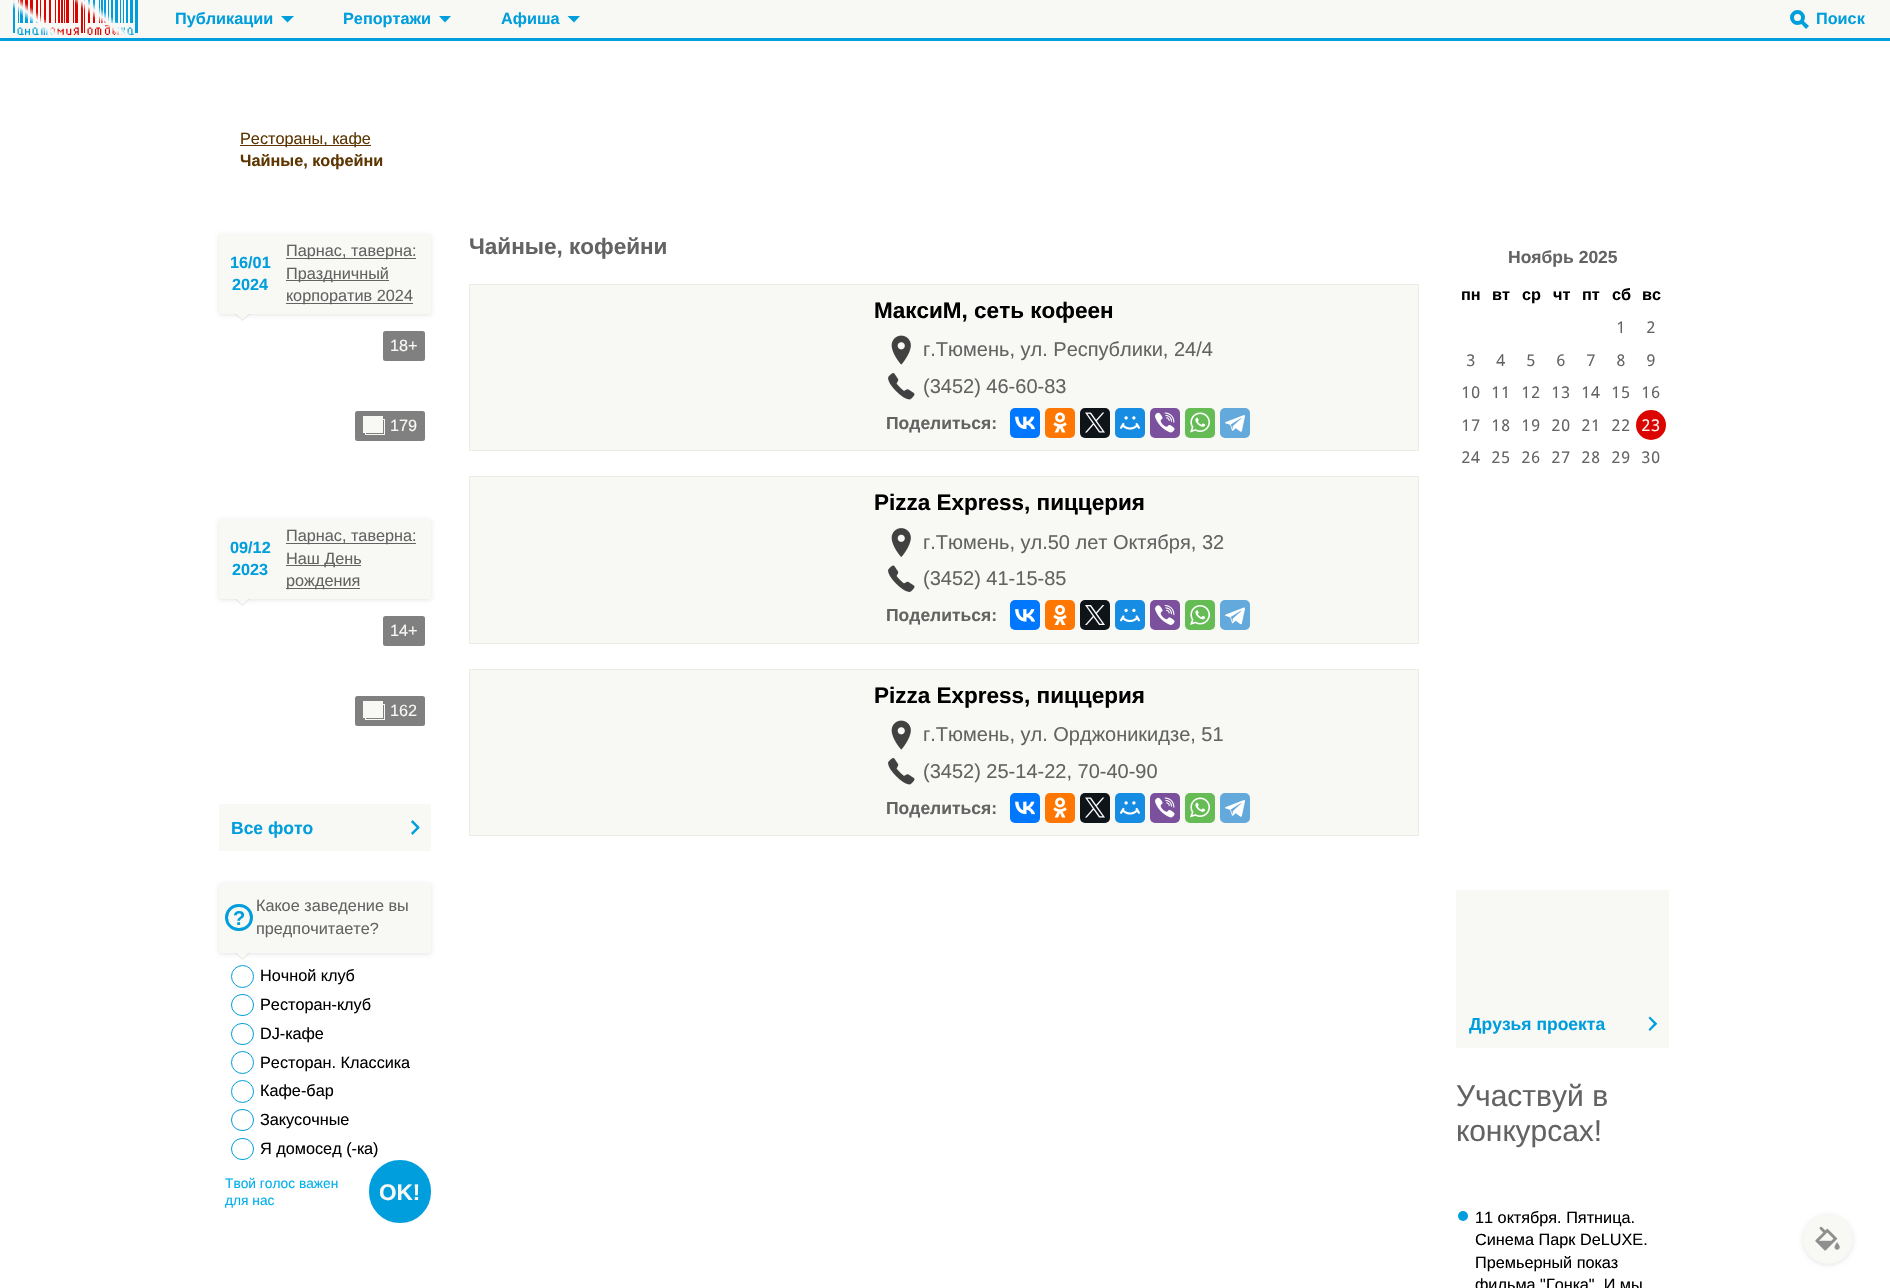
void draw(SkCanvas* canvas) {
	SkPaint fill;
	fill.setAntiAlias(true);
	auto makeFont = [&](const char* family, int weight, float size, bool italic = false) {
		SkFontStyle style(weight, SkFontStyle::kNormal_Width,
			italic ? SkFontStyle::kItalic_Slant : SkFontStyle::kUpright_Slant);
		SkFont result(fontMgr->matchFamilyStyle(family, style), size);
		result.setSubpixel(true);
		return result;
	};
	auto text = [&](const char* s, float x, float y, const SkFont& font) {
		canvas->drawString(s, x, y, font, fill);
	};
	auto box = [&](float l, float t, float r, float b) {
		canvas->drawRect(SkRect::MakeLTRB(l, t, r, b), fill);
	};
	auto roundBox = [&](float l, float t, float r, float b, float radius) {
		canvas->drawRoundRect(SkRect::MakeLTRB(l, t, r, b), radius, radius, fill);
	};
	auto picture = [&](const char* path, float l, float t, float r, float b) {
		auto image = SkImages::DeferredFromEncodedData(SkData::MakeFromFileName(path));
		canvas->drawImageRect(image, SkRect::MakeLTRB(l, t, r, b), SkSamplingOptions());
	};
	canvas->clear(0xFFFFFFFF);
	fill.setColor(0xFFF8F9F4);
	box(0, 0, 1890, 38);
	fill.setColor(0xFF009EDD);
	box(0, 38, 1890, 41);
	picture("image0.png", 13, 0, 138, 35);
	canvas->drawPath(SkPathBuilder().moveTo(281, 16).lineTo(294, 16).lineTo(287.5f, 22.5f).close().detach(), fill);
	canvas->drawPath(SkPathBuilder().moveTo(439, 16).lineTo(451, 16).lineTo(445, 22.5f).close().detach(), fill);
	canvas->drawPath(SkPathBuilder().moveTo(567.5f, 16).lineTo(580, 16).lineTo(574, 22.5f).close().detach(), fill);
	fill.setStyle(SkPaint::kStroke_Style);
	fill.setStrokeWidth(4);
	canvas->drawCircle(1797.5f, 17.5f, 5.5f, fill);
	fill.setStyle(SkPaint::kFill_Style);
	canvas->drawPath(SkPathBuilder().moveTo(1800, 22.5f).lineTo(1802.5f, 20).lineTo(1809, 26).lineTo(1806, 29).close().detach(), fill);
	fill.setColor(0xFF5D3501);
	box(240, 145, 371, 146);
	fill.setColor(0xFFE6E6E6);
	canvas->drawPath(SkPathBuilder().moveTo(235, 314).lineTo(250, 314).lineTo(242.5f, 321).close().detach(), fill);
	fill.setColor(0x1A000000);
	fill.setMaskFilter(SkMaskFilter::MakeBlur(kNormal_SkBlurStyle, 2));
	canvas->drawRoundRect(SkRect::MakeLTRB(219, 235, 431, 315), 2.5f, 2.5f, fill);
	fill.setMaskFilter(nullptr);
	fill.setColor(0xFFF8F9F4);
	roundBox(219, 234, 431, 314, 2.5f);
	fill.setColor(0xFF636363);
	box(286, 258, 416, 259);
	box(286, 280, 389, 281);
	box(286, 303, 413, 304);
	fill.setColor(0xFFF8F9F4);
	canvas->drawPath(SkPathBuilder().moveTo(236, 314).lineTo(249, 314).lineTo(242.5f, 320).close().detach(), fill);
	fill.setColor(0xFF808080);
	roundBox(383, 331, 425, 361, 2.5f);
	roundBox(355, 411, 425, 441, 2.5f);
	fill.setStyle(SkPaint::kStroke_Style);
	fill.setStrokeWidth(1);
	fill.setColor(0xFFF8F9F4);
	canvas->drawRect(SkRect::MakeLTRB(365.5f, 419.5f, 384.5f, 434.5f), fill);
	fill.setStyle(SkPaint::kFill_Style);
	box(363, 416, 383, 433);
	fill.setColor(0xFFE6E6E6);
	canvas->drawPath(SkPathBuilder().moveTo(235, 599).lineTo(250, 599).lineTo(242.5f, 606).close().detach(), fill);
	fill.setColor(0x1A000000);
	fill.setMaskFilter(SkMaskFilter::MakeBlur(kNormal_SkBlurStyle, 2));
	canvas->drawRoundRect(SkRect::MakeLTRB(219, 520, 431, 600), 2.5f, 2.5f, fill);
	fill.setMaskFilter(nullptr);
	fill.setColor(0xFFF8F9F4);
	roundBox(219, 519, 431, 599, 2.5f);
	fill.setColor(0xFF636363);
	box(286, 543, 416, 544);
	box(286, 565, 361, 566);
	box(286, 588, 360, 589);
	fill.setColor(0xFFF8F9F4);
	canvas->drawPath(SkPathBuilder().moveTo(236, 599).lineTo(249, 599).lineTo(242.5f, 605).close().detach(), fill);
	fill.setColor(0xFF808080);
	roundBox(383, 616, 425, 646, 2.5f);
	roundBox(355, 696, 425, 726, 2.5f);
	fill.setStyle(SkPaint::kStroke_Style);
	fill.setColor(0xFFF8F9F4);
	canvas->drawRect(SkRect::MakeLTRB(365.5f, 704.5f, 384.5f, 719.5f), fill);
	fill.setStyle(SkPaint::kFill_Style);
	box(363, 701, 383, 718);
	box(219, 804, 431, 851);
	fill.setColor(0xFF009EDD);
	canvas->drawPath(SkPathBuilder().moveTo(412.5f, 820).lineTo(419.5f, 827).lineTo(418, 829).lineTo(411, 822).close().detach(), fill);
	canvas->drawPath(SkPathBuilder().moveTo(411, 833).lineTo(418, 826).lineTo(419.5f, 828).lineTo(412.5f, 835).close().detach(), fill);
	fill.setColor(0xFFE6E6E6);
	canvas->drawPath(SkPathBuilder().moveTo(235, 952.5f).lineTo(250, 952.5f).lineTo(242.5f, 960).close().detach(), fill);
	fill.setColor(0x1A000000);
	fill.setMaskFilter(SkMaskFilter::MakeBlur(kNormal_SkBlurStyle, 2));
	canvas->drawRoundRect(SkRect::MakeLTRB(219, 884, 431, 954), 2.5f, 2.5f, fill);
	fill.setMaskFilter(nullptr);
	fill.setColor(0xFFF8F9F4);
	roundBox(219, 883, 431, 953, 2.5f);
	fill.setStyle(SkPaint::kStroke_Style);
	fill.setStrokeWidth(3);
	fill.setColor(0xFF009EDD);
	canvas->drawRoundRect(SkRect::MakeLTRB(226.5f, 905.5f, 251.5f, 929.5f), 12, 12, fill);
	fill.setStyle(SkPaint::kFill_Style);
	fill.setColor(0xFFF8F9F4);
	canvas->drawPath(SkPathBuilder().moveTo(236, 952.5f).lineTo(249, 952.5f).lineTo(242.5f, 959).close().detach(), fill);
	fill.setStyle(SkPaint::kStroke_Style);
	fill.setStrokeWidth(1);
	fill.setColor(0xFF009EDD);
	canvas->drawCircle(242.5f, 976.5f, 11, fill);
	canvas->drawRoundRect(SkRect::MakeLTRB(231.5f, 994.5f, 253.5f, 1015.5f), 10.5f, 10.5f, fill);
	canvas->drawRoundRect(SkRect::MakeLTRB(231.5f, 1023.5f, 253.5f, 1044.5f), 10.5f, 10.5f, fill);
	canvas->drawCircle(242.5f, 1062.5f, 11, fill);
	canvas->drawCircle(242.5f, 1091.5f, 11, fill);
	canvas->drawRoundRect(SkRect::MakeLTRB(231.5f, 1109.5f, 253.5f, 1130.5f), 10.5f, 10.5f, fill);
	canvas->drawRoundRect(SkRect::MakeLTRB(231.5f, 1138.5f, 253.5f, 1159.5f), 10.5f, 10.5f, fill);
	fill.setStyle(SkPaint::kFill_Style);
	canvas->drawRoundRect(SkRect::MakeLTRB(370.5f, 1161.5f, 429.5f, 1221.5f), 29.5f, 29.5f, fill);
	fill.setStyle(SkPaint::kStroke_Style);
	fill.setStrokeWidth(3);
	canvas->drawRoundRect(SkRect::MakeLTRB(370.5f, 1161.5f, 429.5f, 1221.5f), 29.5f, 29.5f, fill);
	fill.setStyle(SkPaint::kFill_Style);
	fill.setColor(0xFFF8F9F4);
	canvas->drawRect(SkRect::MakeLTRB(469.5f, 284.5f, 1418.5f, 450.5f), fill);
	fill.setStyle(SkPaint::kStroke_Style);
	fill.setStrokeWidth(1);
	fill.setColor(0xFFEEECE0);
	canvas->drawRect(SkRect::MakeLTRB(469.5f, 284.5f, 1418.5f, 450.5f), fill);
	picture("image1.png", 891, 335, 911, 365);
	picture("image2.png", 888, 373, 915, 400);
	fill.setStyle(SkPaint::kFill_Style);
	fill.setColor(0xFF0077FF);
	roundBox(1010, 408, 1040, 438, 5);
	picture("image3.png", 1015, 416, 1035, 430);
	fill.setColor(0xFFFF7700);
	roundBox(1045, 408, 1075, 438, 5);
	picture("image4.png", 1053, 412, 1067, 433);
	fill.setColor(0xFF0F1419);
	roundBox(1080, 408, 1110, 438, 5);
	picture("image5.png", 1085, 412, 1105, 433);
	fill.setColor(0xFF168DE2);
	roundBox(1115, 408, 1145, 438, 5);
	picture("image6.png", 1120, 416, 1140, 430);
	fill.setColor(0xFF7B519D);
	roundBox(1150, 408, 1180, 438, 5);
	picture("image7.png", 1155, 412, 1175, 433);
	fill.setColor(0xFF65BC54);
	roundBox(1185, 408, 1215, 438, 5);
	picture("image8.png", 1190, 412, 1210, 433);
	fill.setColor(0xFF64A9DC);
	roundBox(1220, 408, 1250, 438, 5);
	picture("image9.png", 1225, 415, 1245, 432);
	fill.setColor(0xFFF8F9F4);
	canvas->drawRect(SkRect::MakeLTRB(469.5f, 476.5f, 1418.5f, 643.5f), fill);
	fill.setStyle(SkPaint::kStroke_Style);
	fill.setColor(0xFFEEECE0);
	canvas->drawRect(SkRect::MakeLTRB(469.5f, 476.5f, 1418.5f, 643.5f), fill);
	picture("image10.png", 891, 528, 911, 557);
	picture("image11.png", 888, 565, 915, 592);
	fill.setStyle(SkPaint::kFill_Style);
	fill.setColor(0xFF0077FF);
	roundBox(1010, 600, 1040, 630, 5);
	picture("image12.png", 1015, 609, 1035, 622);
	fill.setColor(0xFFFF7700);
	roundBox(1045, 600, 1075, 630, 5);
	picture("image13.png", 1053, 605, 1067, 625);
	fill.setColor(0xFF0F1419);
	roundBox(1080, 600, 1110, 630, 5);
	picture("image14.png", 1085, 605, 1105, 625);
	fill.setColor(0xFF168DE2);
	roundBox(1115, 600, 1145, 630, 5);
	picture("image15.png", 1120, 608, 1140, 623);
	fill.setColor(0xFF7B519D);
	roundBox(1150, 600, 1180, 630, 5);
	picture("image16.png", 1155, 605, 1175, 625);
	fill.setColor(0xFF65BC54);
	roundBox(1185, 600, 1215, 630, 5);
	picture("image17.png", 1190, 605, 1210, 625);
	fill.setColor(0xFF64A9DC);
	roundBox(1220, 600, 1250, 630, 5);
	picture("image18.png", 1225, 607, 1245, 625);
	fill.setColor(0xFFF8F9F4);
	canvas->drawRect(SkRect::MakeLTRB(469.5f, 669.5f, 1418.5f, 835.5f), fill);
	fill.setStyle(SkPaint::kStroke_Style);
	fill.setColor(0xFFEEECE0);
	canvas->drawRect(SkRect::MakeLTRB(469.5f, 669.5f, 1418.5f, 835.5f), fill);
	picture("image1.png", 891, 720, 911, 750);
	picture("image2.png", 888, 758, 915, 785);
	fill.setStyle(SkPaint::kFill_Style);
	fill.setColor(0xFF0077FF);
	roundBox(1010, 793, 1040, 823, 5);
	picture("image3.png", 1015, 801, 1035, 815);
	fill.setColor(0xFFFF7700);
	roundBox(1045, 793, 1075, 823, 5);
	picture("image4.png", 1053, 797, 1067, 818);
	fill.setColor(0xFF0F1419);
	roundBox(1080, 793, 1110, 823, 5);
	picture("image5.png", 1085, 797, 1105, 818);
	fill.setColor(0xFF168DE2);
	roundBox(1115, 793, 1145, 823, 5);
	picture("image6.png", 1120, 801, 1140, 815);
	fill.setColor(0xFF7B519D);
	roundBox(1150, 793, 1180, 823, 5);
	picture("image7.png", 1155, 797, 1175, 818);
	fill.setColor(0xFF65BC54);
	roundBox(1185, 793, 1215, 823, 5);
	picture("image8.png", 1190, 797, 1210, 818);
	fill.setColor(0xFF64A9DC);
	roundBox(1220, 793, 1250, 823, 5);
	picture("image9.png", 1225, 800, 1245, 817);
	fill.setColor(0xFFDB0400);
	canvas->drawCircle(1651, 425, 15, fill);
	fill.setColor(0xFFF8F9F4);
	box(1456, 890, 1669, 1048);
	fill.setColor(0xFF009EDD);
	canvas->drawPath(SkPathBuilder().moveTo(1650, 1016.5f).lineTo(1657, 1023.5f).lineTo(1655.5f, 1025.5f).lineTo(1648.5f, 1018).close().detach(), fill);
	canvas->drawPath(SkPathBuilder().moveTo(1648.5f, 1029.5f).lineTo(1655.5f, 1022).lineTo(1657, 1024).lineTo(1650, 1031).close().detach(), fill);
	canvas->drawCircle(1463, 1216, 5, fill);
	fill.setColor(0x1A000000);
	fill.setMaskFilter(SkMaskFilter::MakeBlur(kNormal_SkBlurStyle, 2));
	canvas->drawRoundRect(SkRect::MakeLTRB(1803, 1215, 1853, 1265), 25, 25, fill);
	fill.setMaskFilter(nullptr);
	fill.setColor(0xFFF8F9F4);
	canvas->drawCircle(1828, 1239, 25, fill);
	picture("image19.png", 1815, 1226, 1840, 1251);
	auto font1 = makeFont("Liberation Sans", 700, 16.25f);
	fill.setColor(0xFF009EDD);
	text("Публикации", 175, 24, font1);
	text("Репортажи", 343, 24, font1);
	text("Афиша", 501, 24, font1);
	text("Поиск", 1816, 24, font1);
	auto font2 = makeFont("Liberation Sans", 400, 16.25f);
	fill.setColor(0xFF5D3501);
	text("Рестораны, кафе", 240, 144, font2);
	text("Чайные, кофейни", 240, 166, font1);
	fill.setColor(0xFF009EDD);
	text("16/01", 230, 268, font1);
	text("2024", 232, 290, font1);
	fill.setColor(0xFF636363);
	text("Парнас, таверна:", 286, 256, font2);
	text("Праздничный", 286, 279, font2);
	text("корпоратив 2024", 286, 301, font2);
	fill.setColor(0xFFF8F9F4);
	text("18+", 390, 351, font2);
	text("179", 390, 431, font2);
	fill.setColor(0xFF009EDD);
	text("09/12", 230, 553, font1);
	text("2023", 232, 575, font1);
	fill.setColor(0xFF636363);
	text("Парнас, таверна:", 286, 541, font2);
	text("Наш День", 286, 564, font2);
	text("рождения", 286, 586, font2);
	fill.setColor(0xFFF8F9F4);
	text("14+", 390, 636, font2);
	text("162", 390, 716, font2);
	auto font3 = makeFont("Liberation Sans", 700, 17.5f);
	fill.setColor(0xFF009EDD);
	text("Все фото", 231, 834, font3);
	fill.setColor(0xFF636363);
	text("Какое заведение вы", 256, 911, font2);
	auto font4 = makeFont("Liberation Sans", 700, 20);
	fill.setColor(0xFF009EDD);
	text("?", 233, 925, font4);
	fill.setColor(0xFF636363);
	text("предпочитаете?", 256, 934, font2);
	fill.setColor(0xFF000000);
	text("Ночной клуб", 260, 981, font2);
	text("Ресторан-клуб", 260, 1010, font2);
	text("DJ-кафе", 260, 1039, font2);
	text("Ресторан. Классика", 260, 1068, font2);
	text("Кафе-бар", 260, 1096, font2);
	text("Закусочные", 260, 1125, font2);
	text("Я домосед (-ка)", 260, 1154, font2);
	auto font5 = makeFont("Liberation Sans", 400, 13.75f);
	fill.setColor(0xFF00AFEC);
	text("Твой голос важен", 225, 1188, font5);
	text("для нас", 225, 1205, font5);
	auto font6 = makeFont("Liberation Sans", 700, 22.5f);
	fill.setColor(0xFFF8F9F4);
	text("OK!", 379, 1200, font6);
	fill.setColor(0xFF636363);
	text("Чайные, кофейни", 469, 254, font6);
	fill.setColor(0xFF000000);
	text("МаксиМ, сеть кофеен", 874, 318, font6);
	auto font7 = makeFont("Liberation Sans", 400, 20);
	fill.setColor(0xFF636363);
	text("г.Тюмень, ул. Республики, 24/4", 923, 356, font7);
	text("(3452) 46-60-83", 923, 393, font7);
	text("Поделиться:", 886, 429, font3);
	fill.setColor(0xFF000000);
	text("Pizza Express, пиццерия", 874, 510, font6);
	fill.setColor(0xFF636363);
	text("г.Тюмень, ул.50 лет Октября, 32", 923, 549, font7);
	text("(3452) 41-15-85", 923, 585, font7);
	text("Поделиться:", 886, 621, font3);
	fill.setColor(0xFF000000);
	text("Pizza Express, пиццерия", 874, 703, font6);
	fill.setColor(0xFF636363);
	text("г.Тюмень, ул. Орджоникидзе, 51", 923, 741, font7);
	text("(3452) 25-14-22, 70-40-90", 923, 778, font7);
	text("Поделиться:", 886, 814, font3);
	text("Ноябрь 2025", 1508, 263, font3);
	fill.setColor(0xFF000000);
	text("пн", 1461, 300, font1);
	text("вт", 1492, 300, font1);
	text("ср", 1522, 300, font1);
	text("чт", 1553, 300, font1);
	text("пт", 1582, 300, font1);
	text("сб", 1612, 300, font1);
	text("вс", 1642, 300, font1);
	auto font8 = makeFont("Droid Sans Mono", 400, 16.25f);
	fill.setColor(0xFF636363);
	text("1", 1616, 333, font8);
	text("2", 1646, 333, font8);
	text("3", 1466, 366, font8);
	text("4", 1496, 366, font8);
	text("5", 1526, 366, font8);
	text("6", 1556, 366, font8);
	text("7", 1586, 366, font8);
	text("8", 1616, 366, font8);
	text("9", 1646, 366, font8);
	text("10", 1461, 398, font8);
	text("11", 1491, 398, font8);
	text("12", 1521, 398, font8);
	text("13", 1551, 398, font8);
	text("14", 1581, 398, font8);
	text("15", 1611, 398, font8);
	text("16", 1641, 398, font8);
	text("17", 1461, 431, font8);
	text("18", 1491, 431, font8);
	text("19", 1521, 431, font8);
	text("20", 1551, 431, font8);
	text("21", 1581, 431, font8);
	text("22", 1611, 431, font8);
	fill.setColor(0xFFF8F9F4);
	text("23", 1641, 431, font8);
	fill.setColor(0xFF636363);
	text("24", 1461, 463, font8);
	text("25", 1491, 463, font8);
	text("26", 1521, 463, font8);
	text("27", 1551, 463, font8);
	text("28", 1581, 463, font8);
	text("29", 1611, 463, font8);
	text("30", 1641, 463, font8);
	fill.setColor(0xFF009EDD);
	text("Друзья проекта", 1469, 1030, font3);
	auto font9 = makeFont("Liberation Sans", 400, 30);
	fill.setColor(0xFF636363);
	text("Участвуй в", 1456, 1106, font9);
	text("конкурсах!", 1456, 1141, font9);
	fill.setColor(0xFF000000);
	text("11 октября. Пятница.", 1475, 1223, font2);
	text("Синема Парк DeLUXE.", 1475, 1245, font2);
	text("Премьерный показ", 1475, 1268, font2);
	text("фильма \"Гонка\". И мы", 1475, 1290, font2);
}
